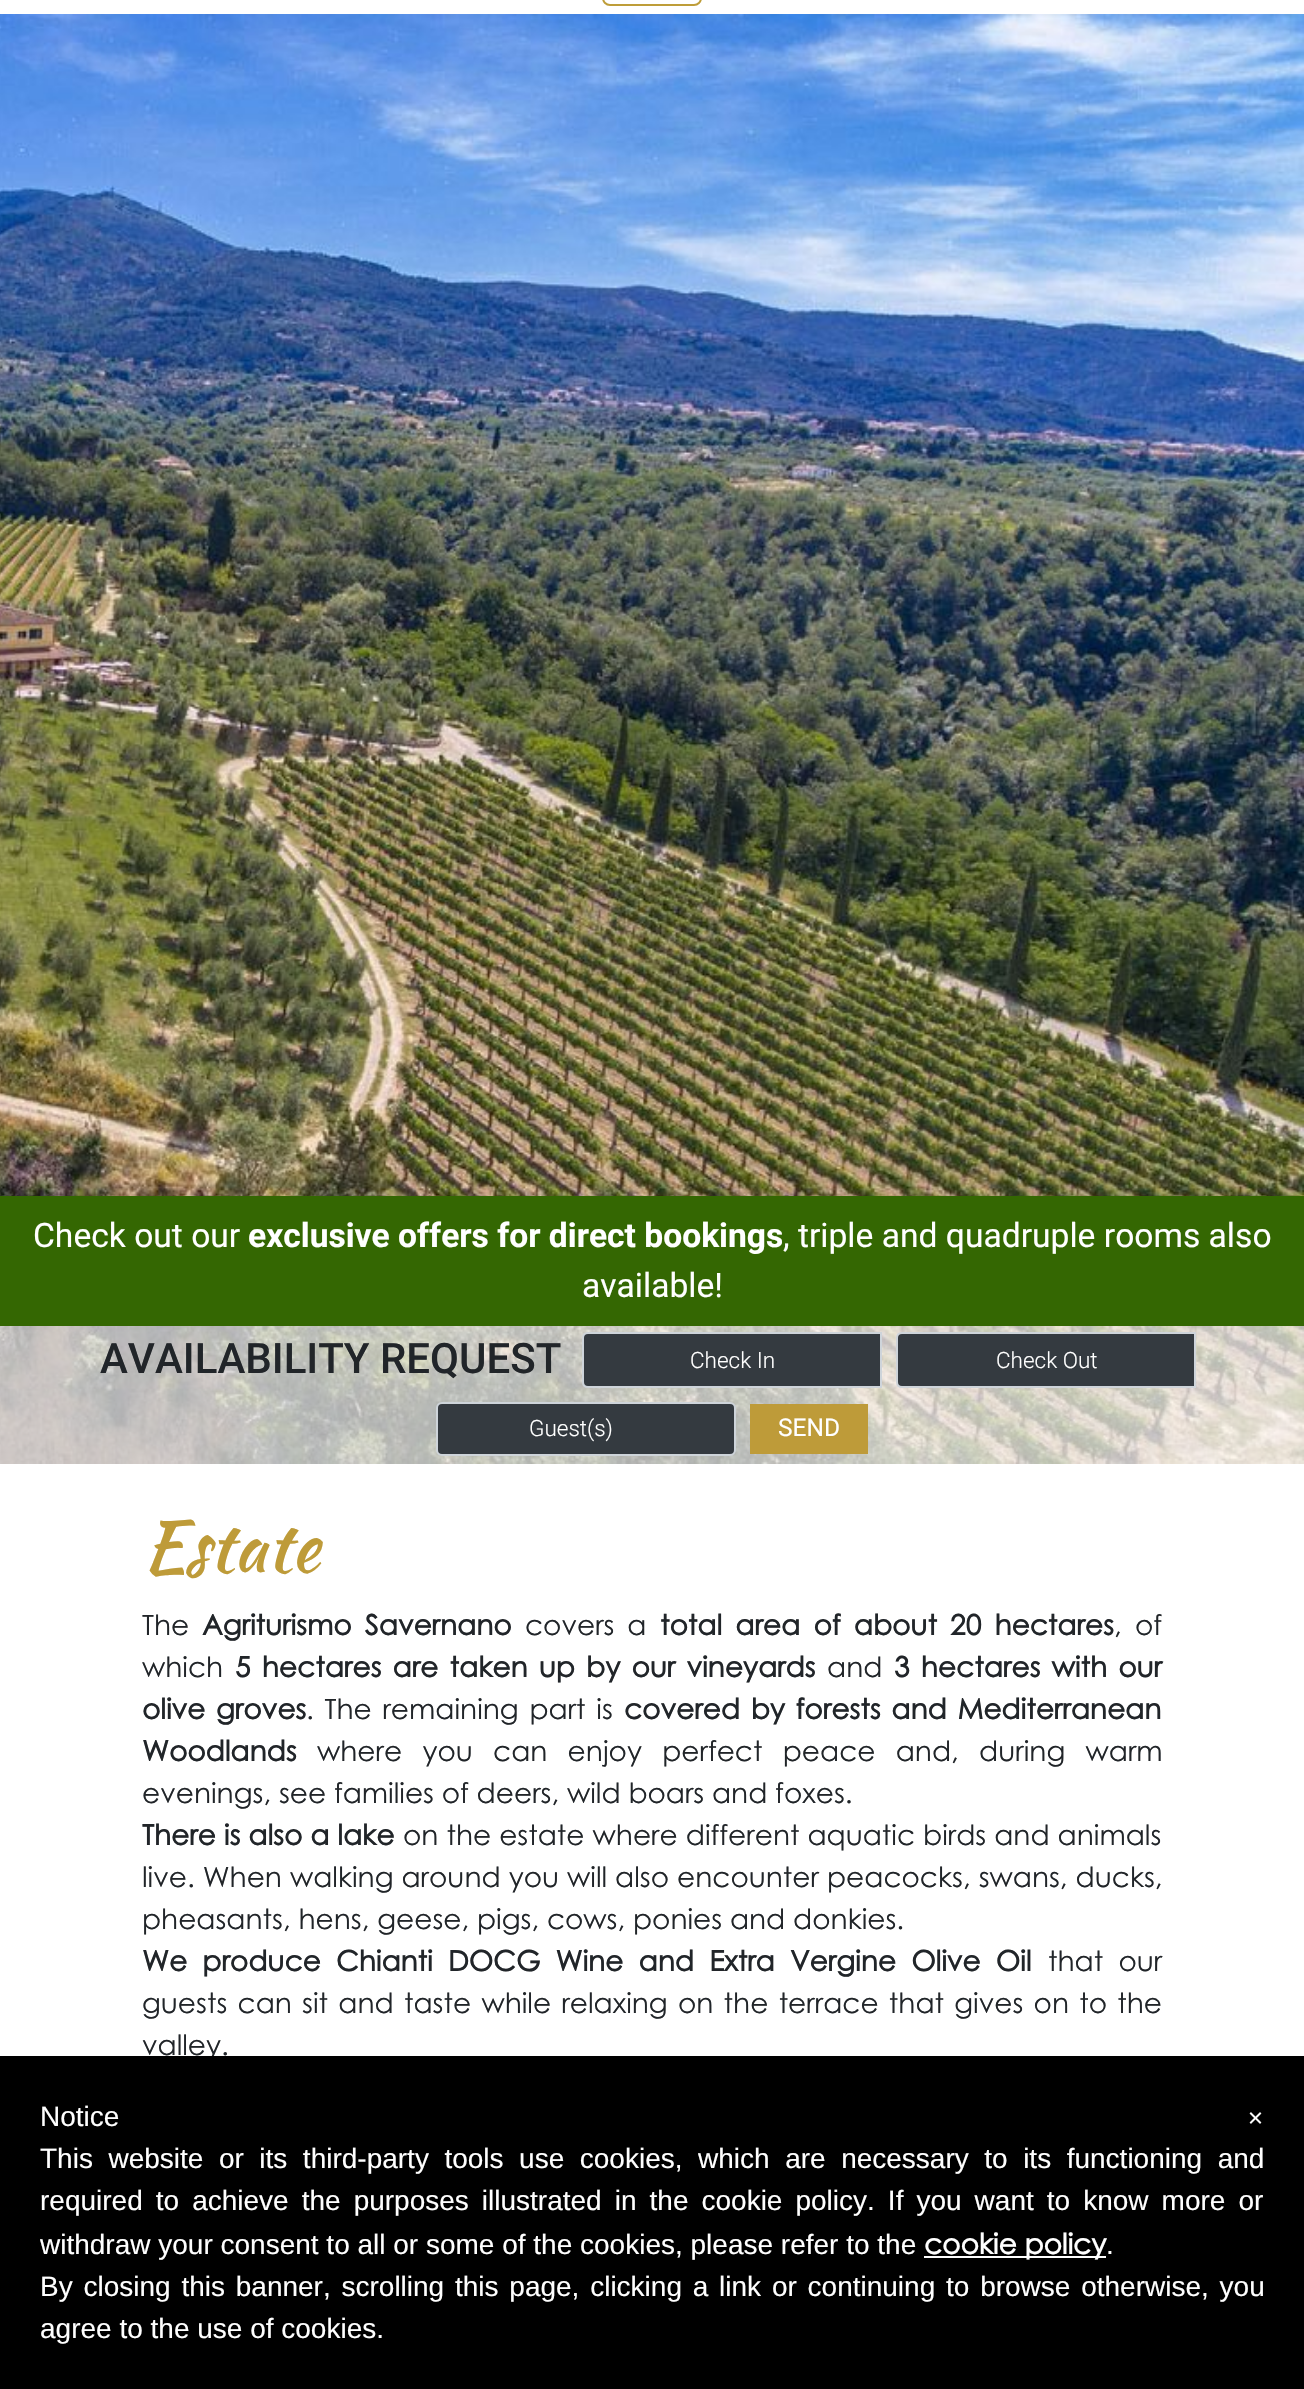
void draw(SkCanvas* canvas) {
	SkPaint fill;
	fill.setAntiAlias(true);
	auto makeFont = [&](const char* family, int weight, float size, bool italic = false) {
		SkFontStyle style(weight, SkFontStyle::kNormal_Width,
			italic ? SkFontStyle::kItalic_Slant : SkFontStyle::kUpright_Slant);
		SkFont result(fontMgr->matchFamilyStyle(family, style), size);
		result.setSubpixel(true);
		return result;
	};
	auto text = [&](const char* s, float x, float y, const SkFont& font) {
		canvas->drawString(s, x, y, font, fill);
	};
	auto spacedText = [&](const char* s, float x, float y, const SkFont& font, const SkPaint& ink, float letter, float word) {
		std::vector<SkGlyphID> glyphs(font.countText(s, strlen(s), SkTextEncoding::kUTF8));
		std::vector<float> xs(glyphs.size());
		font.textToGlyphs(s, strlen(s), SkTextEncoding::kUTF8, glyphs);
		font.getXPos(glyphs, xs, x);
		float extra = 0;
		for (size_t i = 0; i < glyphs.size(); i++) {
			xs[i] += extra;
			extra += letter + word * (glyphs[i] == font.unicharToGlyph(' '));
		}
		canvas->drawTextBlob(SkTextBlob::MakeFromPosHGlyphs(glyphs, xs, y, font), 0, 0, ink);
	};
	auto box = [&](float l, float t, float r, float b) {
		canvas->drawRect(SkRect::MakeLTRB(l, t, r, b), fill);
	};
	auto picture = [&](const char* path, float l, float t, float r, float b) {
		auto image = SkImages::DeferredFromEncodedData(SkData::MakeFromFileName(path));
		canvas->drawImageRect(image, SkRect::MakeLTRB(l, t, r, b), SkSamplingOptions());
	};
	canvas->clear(0xFFFFFFFF);
	fill.setStyle(SkPaint::kStroke_Style);
	fill.setStrokeWidth(2);
	fill.setColor(0xFFBE9D39);
	canvas->drawRoundRect(SkRect::MakeLTRB(603, -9, 701, 5), 7, 7, fill);
	picture("image0.png", 0, 14, 1304, 1464);
	fill.setStyle(SkPaint::kFill_Style);
	fill.setColor(0xABFFFFFF);
	box(0, 1326, 1304, 1464);
	fill.setColor(0xFF346702);
	box(0, 1196, 1304, 1326);
	fill.setColor(0xFF343A40);
	canvas->drawPath(SkPathBuilder().moveTo(588, 1333).lineTo(881, 1333).lineTo(881, 1387).lineTo(588, 1387).cubicTo(585, 1387, 583, 1385, 583, 1382).lineTo(583, 1338).cubicTo(583, 1335, 585, 1333, 588, 1333).close().detach(), fill);
	fill.setStyle(SkPaint::kStroke_Style);
	fill.setColor(0xFFCED4DA);
	canvas->drawPath(SkPathBuilder().moveTo(588, 1333).lineTo(881, 1333).lineTo(881, 1387).lineTo(588, 1387).cubicTo(585, 1387, 583, 1385, 583, 1382).lineTo(583, 1338).cubicTo(583, 1335, 585, 1333, 588, 1333).close().detach(), fill);
	fill.setStyle(SkPaint::kFill_Style);
	fill.setColor(0xFF343A40);
	canvas->drawPath(SkPathBuilder().moveTo(902, 1333).lineTo(1195, 1333).lineTo(1195, 1387).lineTo(902, 1387).cubicTo(899, 1387, 897, 1385, 897, 1382).lineTo(897, 1338).cubicTo(897, 1335, 899, 1333, 902, 1333).close().detach(), fill);
	fill.setStyle(SkPaint::kStroke_Style);
	fill.setColor(0xFFCED4DA);
	canvas->drawPath(SkPathBuilder().moveTo(902, 1333).lineTo(1195, 1333).lineTo(1195, 1387).lineTo(902, 1387).cubicTo(899, 1387, 897, 1385, 897, 1382).lineTo(897, 1338).cubicTo(897, 1335, 899, 1333, 902, 1333).close().detach(), fill);
	fill.setStyle(SkPaint::kFill_Style);
	fill.setColor(0xFF343A40);
	canvas->drawRoundRect(SkRect::MakeLTRB(437, 1403, 735, 1455), 5, 5, fill);
	fill.setStyle(SkPaint::kStroke_Style);
	fill.setColor(0xFFCED4DA);
	canvas->drawRoundRect(SkRect::MakeLTRB(437, 1403, 735, 1455), 5, 5, fill);
	fill.setStyle(SkPaint::kFill_Style);
	fill.setColor(0xFFBE9B39);
	box(750, 1404, 868, 1454);
	auto font1 = makeFont("Roboto", 400, 33.6f);
	fill.setColor(0xFFFFFFFF);
	text("Check out our", 33, 1247, font1);
	auto font2 = makeFont("Roboto", 700, 33.6f);
	text("exclusive offers for direct bookings", 248, 1247, font2);
	text(", triple and quadruple rooms also", 783, 1247, font1);
	text("available!", 582, 1297, font1);
	auto font3 = makeFont("Roboto", 500, 42);
	fill.setColor(0xFF212529);
	text("AVAILABILITY REQUEST", 100, 1373, font3);
	auto font4 = makeFont("Roboto", 300, 22.5f);
	fill.setColor(0xFFFFFFFF);
	text("Check In", 690, 1368, font4);
	text("Check Out", 996, 1368, font4);
	text("Guest(s)", 529, 1436, font4);
	auto font5 = makeFont("Roboto", 400, 24.5f);
	text("SEND", 778, 1436, font5);
	auto font6 = makeFont("Kaushan Script", 400, 70);
	fill.setColor(0xFFBE9B39);
	text("Estate", 142, 1571, font6);
	auto font7 = makeFont("Century Gothic", 400, 28);
	fill.setColor(0xFF212529);
	text("The", 142, 1635, font7);
	auto font8 = makeFont("Century Gothic", 700, 28);
	spacedText("Agriturismo Savernano", 202, 1635, font8, fill, 0, 5.5f);
	spacedText("covers a", 525, 1635, font7, fill, 0, 5);
	spacedText("total area of about 20 hectares", 660, 1635, font8, fill, 0, 5.5f);
	spacedText(", of", 1114, 1635, font7, fill, 0, 5.5f);
	text("which", 142, 1677, font7);
	spacedText("5 hectares are taken up by our vineyards", 235, 1677, font8, fill, 0, 3.5f);
	text("and", 827, 1677, font7);
	spacedText("3 hectares with our", 894, 1677, font8, fill, 0, 3.5f);
	spacedText("olive groves", 142, 1719, font8, fill, 0, 3);
	spacedText(". The remaining part is", 306, 1719, font7, fill, 0, 3);
	spacedText("covered by forests and Mediterranean", 624, 1719, font8, fill, 0, 3);
	text("Woodlands", 142, 1761, font8);
	spacedText("where you can enjoy perfect peace and, during warm", 317, 1761, font7, fill, 0, 12.5f);
	text("evenings, see families of deers, wild boars and foxes.", 142, 1803, font7);
	spacedText("There is also a lake", 142, 1845, font8, fill, 0, 0.25f);
	spacedText("on the estate where different aquatic birds and animals", 403, 1845, font7, fill, 0, 0.25f);
	spacedText("live. When walking around you will also encounter peacocks, swans, ducks,", 142, 1887, font7, fill, 0, 0.25f);
	text("pheasants, hens, geese, pigs, cows, ponies and donkies.", 142, 1929, font7);
	spacedText("We produce Chianti DOCG Wine and Extra Vergine Olive Oil", 142, 1971, font8, fill, 0, 7.5f);
	spacedText("that our", 1048, 1971, font7, fill, 0, 7.5f);
	spacedText("guests can sit and taste while relaxing on the terrace that gives on to the", 142, 2013, font7, fill, 0, 2.5f);
	text("valley.", 142, 2055, font7);
	fill.setColor(0xFF000000);
	box(0, 2056, 1304, 2389);
	auto font9 = makeFont("Liberation Sans", 400, 28);
	fill.setColor(0xFFFFFFFF);
	text("Notice", 40, 2126, font9);
	spacedText("This website or its third-party tools use cookies, which are necessary to its functioning and", 40, 2168, font9, fill, 0, 7.75f);
	spacedText("required to achieve the purposes illustrated in the cookie policy. If you want to know more or", 40, 2210, font9, fill, 0, 5.25f);
	text("withdraw your consent to all or some of the cookies, please refer to the", 40, 2254, font9);
	box(924, 2256, 1106, 2258);
	text("cookie policy", 924, 2254, font8);
	text(".", 1106, 2254, font9);
	spacedText("By closing this banner, scrolling this page, clicking a link or continuing to browse otherwise, you", 40, 2296, font9, fill, 0, 3);
	text("agree to the use of cookies.", 40, 2338, font9);
	text("×", 1247, 2128, font7);
}
